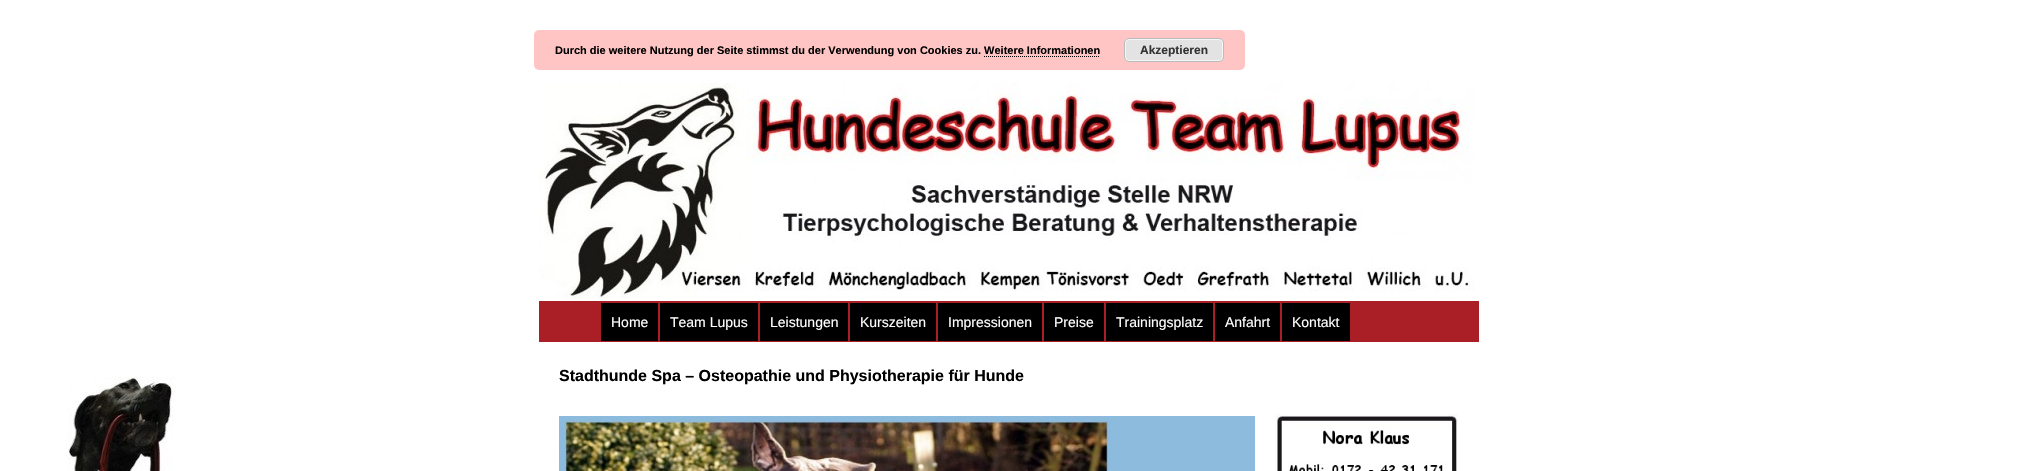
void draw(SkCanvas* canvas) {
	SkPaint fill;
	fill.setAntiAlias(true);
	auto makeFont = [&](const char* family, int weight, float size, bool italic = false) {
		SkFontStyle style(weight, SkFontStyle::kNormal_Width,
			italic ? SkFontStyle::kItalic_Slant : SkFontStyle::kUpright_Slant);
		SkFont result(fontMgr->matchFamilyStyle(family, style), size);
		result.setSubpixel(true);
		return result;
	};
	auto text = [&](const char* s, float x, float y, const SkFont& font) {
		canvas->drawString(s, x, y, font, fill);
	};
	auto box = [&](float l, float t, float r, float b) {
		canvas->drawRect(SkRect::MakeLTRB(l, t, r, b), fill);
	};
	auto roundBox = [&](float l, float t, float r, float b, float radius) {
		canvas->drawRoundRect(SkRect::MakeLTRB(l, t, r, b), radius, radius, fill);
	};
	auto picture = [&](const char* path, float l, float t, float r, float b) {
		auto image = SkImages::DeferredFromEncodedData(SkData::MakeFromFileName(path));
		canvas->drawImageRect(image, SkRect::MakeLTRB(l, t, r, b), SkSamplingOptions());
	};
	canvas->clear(0xFFFFFFFF);
	picture("image0.png", 65, 376, 176, 471);
	fill.setColor(0xFFFFC4C4);
	roundBox(534, 30, 1245, 70, 5);
	fill.setColor(0xFFE3E3E3);
	roundBox(1124, 38, 1224, 62, 5);
	fill.setStyle(SkPaint::kStroke_Style);
	fill.setStrokeWidth(1);
	fill.setColor(0xFFF6F6F6);
	canvas->drawRoundRect(SkRect::MakeLTRB(1125.5f, 39.5f, 1222.5f, 60.5f), 3.5f, 3.5f, fill);
	fill.setColor(0xFFBBBBBB);
	canvas->drawRoundRect(SkRect::MakeLTRB(1124.5f, 38.5f, 1223.5f, 61.5f), 4.5f, 4.5f, fill);
	fill.setColor(0xFF000000);
	fill.setPathEffect(SkDashPathEffect::Make({{1, 1}}, 0));
	canvas->drawPath(SkPathBuilder().moveTo(984, 56.5f).lineTo(1100, 56.5f).detach(), fill);
	fill.setPathEffect(nullptr);
	picture("image1.png", 539, 83, 1475, 299);
	fill.setStyle(SkPaint::kFill_Style);
	fill.setColor(0xFFAA1F26);
	box(539, 301, 1479, 342);
	fill.setColor(0xFF000000);
	box(601, 303, 658, 341);
	box(660, 303, 758, 341);
	box(760, 303, 848, 341);
	box(850, 303, 936, 341);
	box(938, 303, 1042, 341);
	box(1044, 303, 1104, 341);
	box(1106, 303, 1213, 341);
	box(1215, 303, 1280, 341);
	box(1282, 303, 1350, 341);
	picture("image2.png", 559, 416, 1255, 471);
	picture("image3.png", 1275, 414, 1458, 471);
	auto font1 = makeFont("Liberation Sans", 700, 11);
	text("Durch die weitere Nutzung der Seite stimmst du der Verwendung von Cookies zu. Weitere Informationen", 555, 54, font1);
	auto font2 = makeFont("Liberation Sans", 700, 12);
	fill.setColor(0xFF333333);
	text("Akzeptieren", 1140, 54, font2);
	auto font3 = makeFont("Liberation Sans", 400, 14);
	fill.setColor(0xFFFFFFFF);
	text("Home", 611, 327, font3);
	text("Team Lupus", 670, 327, font3);
	text("Leistungen", 770, 327, font3);
	text("Kurszeiten", 860, 327, font3);
	text("Impressionen", 948, 327, font3);
	text("Preise", 1054, 327, font3);
	text("Trainingsplatz", 1116, 327, font3);
	text("Anfahrt", 1225, 327, font3);
	text("Kontakt", 1292, 327, font3);
	auto font4 = makeFont("Liberation Sans", 700, 16);
	fill.setColor(0xFF000000);
	text("Stadthunde Spa – Osteopathie und Physiotherapie für Hunde", 559, 381, font4);
}
